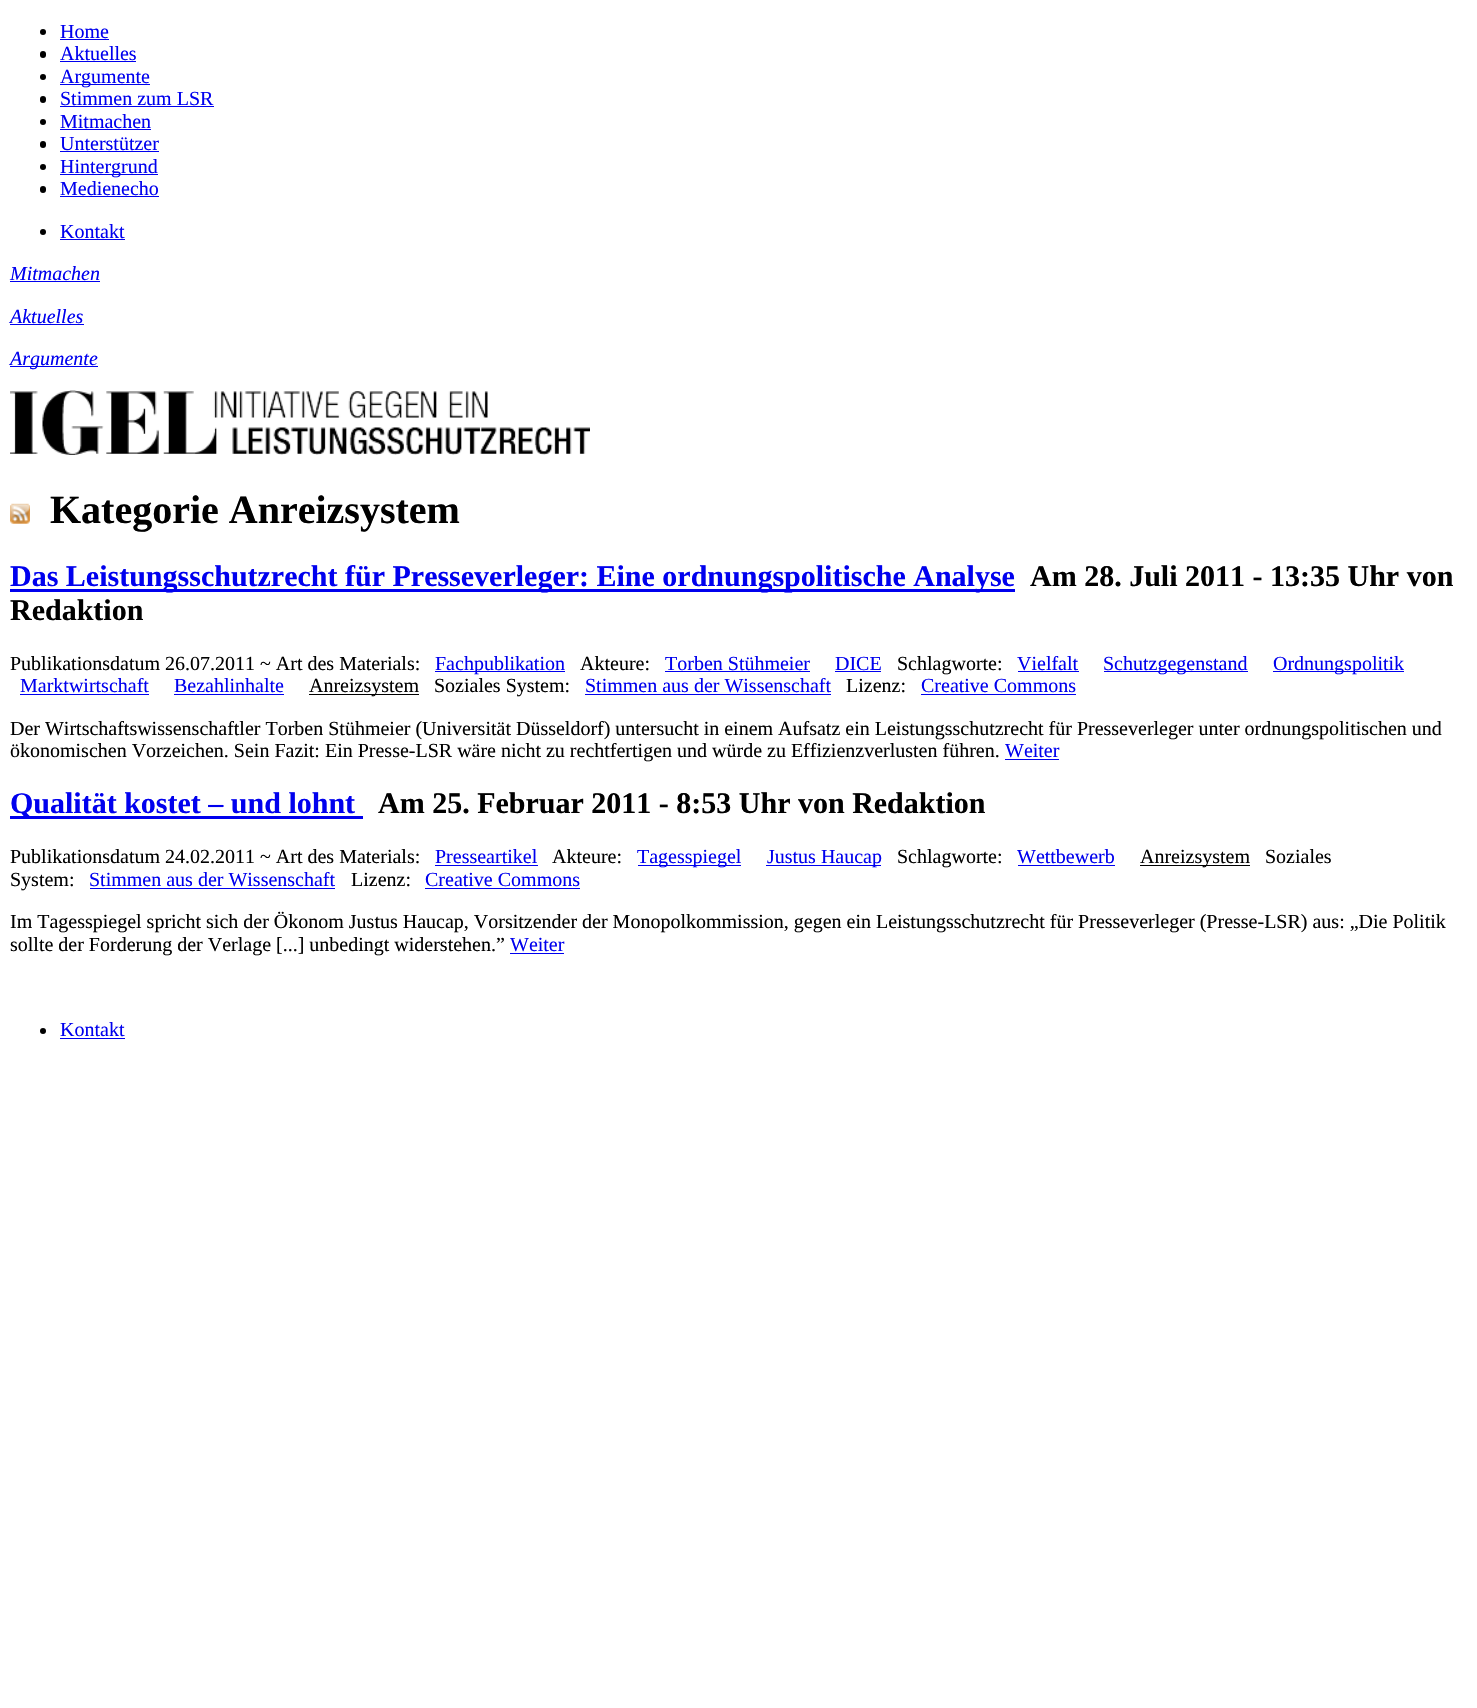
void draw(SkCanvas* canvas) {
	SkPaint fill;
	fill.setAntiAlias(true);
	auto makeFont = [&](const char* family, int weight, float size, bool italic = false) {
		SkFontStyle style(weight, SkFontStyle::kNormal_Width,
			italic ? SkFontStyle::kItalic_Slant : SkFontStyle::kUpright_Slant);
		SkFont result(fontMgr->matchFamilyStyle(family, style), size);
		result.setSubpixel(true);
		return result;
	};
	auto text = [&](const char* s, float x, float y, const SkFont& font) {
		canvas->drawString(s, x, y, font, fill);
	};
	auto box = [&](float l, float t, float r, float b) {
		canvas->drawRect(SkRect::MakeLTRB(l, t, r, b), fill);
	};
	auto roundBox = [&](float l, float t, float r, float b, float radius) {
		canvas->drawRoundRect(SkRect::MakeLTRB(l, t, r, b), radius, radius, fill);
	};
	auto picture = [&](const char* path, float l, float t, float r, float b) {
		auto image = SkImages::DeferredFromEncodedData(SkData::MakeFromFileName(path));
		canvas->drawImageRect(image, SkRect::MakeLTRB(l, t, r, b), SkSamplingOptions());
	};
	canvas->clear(0xFFFFFFFF);
	fill.setColor(0xFF000000);
	canvas->drawCircle(43, 32, 3, fill);
	fill.setColor(0xFF0000EE);
	box(60, 39, 109, 40);
	fill.setColor(0xFF000000);
	roundBox(40, 51, 46, 58, 3);
	fill.setColor(0xFF0000EE);
	box(60, 61, 136, 62);
	fill.setColor(0xFF000000);
	canvas->drawCircle(43, 77, 3, fill);
	fill.setColor(0xFF0000EE);
	box(60, 84, 150, 85);
	fill.setColor(0xFF000000);
	roundBox(40, 96, 46, 103, 3);
	fill.setColor(0xFF0000EE);
	box(60, 106, 214, 107);
	fill.setColor(0xFF000000);
	canvas->drawCircle(43, 122, 3, fill);
	fill.setColor(0xFF0000EE);
	box(60, 129, 151, 130);
	fill.setColor(0xFF000000);
	roundBox(40, 141, 46, 148, 3);
	fill.setColor(0xFF0000EE);
	box(60, 151, 159, 152);
	fill.setColor(0xFF000000);
	canvas->drawCircle(43, 167, 3, fill);
	fill.setColor(0xFF0000EE);
	box(60, 174, 158, 175);
	fill.setColor(0xFF000000);
	roundBox(40, 186, 46, 193, 3);
	fill.setColor(0xFF0000EE);
	box(60, 196, 159, 197);
	fill.setColor(0xFF000000);
	canvas->drawCircle(43, 232, 3, fill);
	fill.setColor(0xFF0000EE);
	box(60, 239, 125, 240);
	box(10, 281, 100, 282);
	box(10, 324, 84, 325);
	box(10, 366, 98, 367);
	picture("image0.png", 10, 390, 590, 455);
	picture("image1.png", 10, 503, 30, 524);
	box(10, 589, 1015, 592);
	box(435, 671, 565, 672);
	box(665, 671, 810, 672);
	box(835, 671, 881, 672);
	box(1018, 671, 1079, 672);
	box(1104, 671, 1248, 672);
	box(1273, 671, 1404, 672);
	box(20, 694, 149, 695);
	box(174, 694, 284, 695);
	fill.setColor(0xFF000000);
	box(309, 694, 419, 695);
	fill.setColor(0xFF0000EE);
	box(585, 694, 831, 695);
	box(921, 694, 1076, 695);
	box(1005, 759, 1059, 760);
	box(10, 816, 363, 819);
	box(435, 865, 538, 866);
	box(638, 865, 741, 866);
	box(766, 865, 881, 866);
	box(1018, 865, 1115, 866);
	fill.setColor(0xFF000000);
	box(1140, 865, 1250, 866);
	fill.setColor(0xFF0000EE);
	box(90, 888, 335, 889);
	box(425, 888, 580, 889);
	box(510, 953, 564, 954);
	fill.setColor(0xFF000000);
	canvas->drawCircle(43, 1031, 3, fill);
	fill.setColor(0xFF0000EE);
	box(60, 1038, 125, 1039);
	auto font1 = makeFont("Liberation Serif", 400, 20);
	text("Home", 60, 38, font1);
	text("Aktuelles", 60, 60, font1);
	text("Argumente", 60, 83, font1);
	text("Stimmen zum LSR", 60, 105, font1);
	text("Mitmachen", 60, 128, font1);
	text("Unterstützer", 60, 150, font1);
	text("Hintergrund", 60, 173, font1);
	text("Medienecho", 60, 195, font1);
	text("Kontakt", 60, 238, font1);
	auto font2 = makeFont("Liberation Serif", 400, 20, true);
	text("Mitmachen", 10, 280, font2);
	text("Aktuelles", 10, 323, font2);
	text("Argumente", 10, 365, font2);
	auto font3 = makeFont("Liberation Serif", 700, 40);
	fill.setColor(0xFF000000);
	text("Kategorie Anreizsystem", 50, 523, font3);
	auto font4 = makeFont("Liberation Serif", 700, 30);
	fill.setColor(0xFF0000EE);
	text("Das Leistungsschutzrecht für Presseverleger: Eine ordnungspolitische Analyse", 10, 586, font4);
	fill.setColor(0xFF000000);
	text("Am 28. Juli 2011 - 13:35 Uhr von", 1030, 586, font4);
	text("Redaktion", 10, 620, font4);
	text("Publikationsdatum 26.07.2011 ~ Art des Materials:", 10, 670, font1);
	fill.setColor(0xFF0000EE);
	text("Fachpublikation", 435, 670, font1);
	fill.setColor(0xFF000000);
	text("Akteure:", 580, 670, font1);
	fill.setColor(0xFF0000EE);
	text("Torben Stühmeier", 665, 670, font1);
	text("DICE", 835, 670, font1);
	fill.setColor(0xFF000000);
	text("Schlagworte:", 897, 670, font1);
	fill.setColor(0xFF0000EE);
	text("Vielfalt", 1017, 670, font1);
	text("Schutzgegenstand", 1103, 670, font1);
	text("Ordnungspolitik", 1273, 670, font1);
	text("Marktwirtschaft", 20, 692, font1);
	text("Bezahlinhalte", 174, 692, font1);
	fill.setColor(0xFF000000);
	text("Anreizsystem", 309, 692, font1);
	text("Soziales System:", 434, 692, font1);
	fill.setColor(0xFF0000EE);
	text("Stimmen aus der Wissenschaft", 585, 692, font1);
	fill.setColor(0xFF000000);
	text("Lizenz:", 846, 692, font1);
	fill.setColor(0xFF0000EE);
	text("Creative Commons", 921, 692, font1);
	fill.setColor(0xFF000000);
	text("Der Wirtschaftswissenschaftler Torben Stühmeier (Universität Düsseldorf) untersucht in einem Aufsatz ein Leistungsschutzrecht für Presseverleger unter ordnungspolitischen und", 10, 735, font1);
	text("ökonomischen Vorzeichen. Sein Fazit: Ein Presse-LSR wäre nicht zu rechtfertigen und würde zu Effizienzverlusten führen.", 10, 757, font1);
	fill.setColor(0xFF0000EE);
	text("Weiter", 1005, 757, font1);
	text("Qualität kostet – und lohnt", 10, 813, font4);
	fill.setColor(0xFF000000);
	text("Am 25. Februar 2011 - 8:53 Uhr von Redaktion", 378, 813, font4);
	text("Publikationsdatum 24.02.2011 ~ Art des Materials:", 10, 863, font1);
	fill.setColor(0xFF0000EE);
	text("Presseartikel", 435, 863, font1);
	fill.setColor(0xFF000000);
	text("Akteure:", 552, 863, font1);
	fill.setColor(0xFF0000EE);
	text("Tagesspiegel", 637, 863, font1);
	text("Justus Haucap", 767, 863, font1);
	fill.setColor(0xFF000000);
	text("Schlagworte:", 897, 863, font1);
	fill.setColor(0xFF0000EE);
	text("Wettbewerb", 1017, 863, font1);
	fill.setColor(0xFF000000);
	text("Anreizsystem", 1140, 863, font1);
	text("Soziales", 1265, 863, font1);
	text("System:", 10, 886, font1);
	fill.setColor(0xFF0000EE);
	text("Stimmen aus der Wissenschaft", 89, 886, font1);
	fill.setColor(0xFF000000);
	text("Lizenz:", 351, 886, font1);
	fill.setColor(0xFF0000EE);
	text("Creative Commons", 425, 886, font1);
	fill.setColor(0xFF000000);
	text("Im Tagesspiegel spricht sich der Ökonom Justus Haucap, Vorsitzender der Monopolkommission, gegen ein Leistungsschutzrecht für Presseverleger (Presse-LSR) aus: „Die Politik", 10, 928, font1);
	text("sollte der Forderung der Verlage [...] unbedingt widerstehen.”", 10, 951, font1);
	fill.setColor(0xFF0000EE);
	text("Weiter", 510, 951, font1);
	text("Kontakt", 60, 1036, font1);
}
